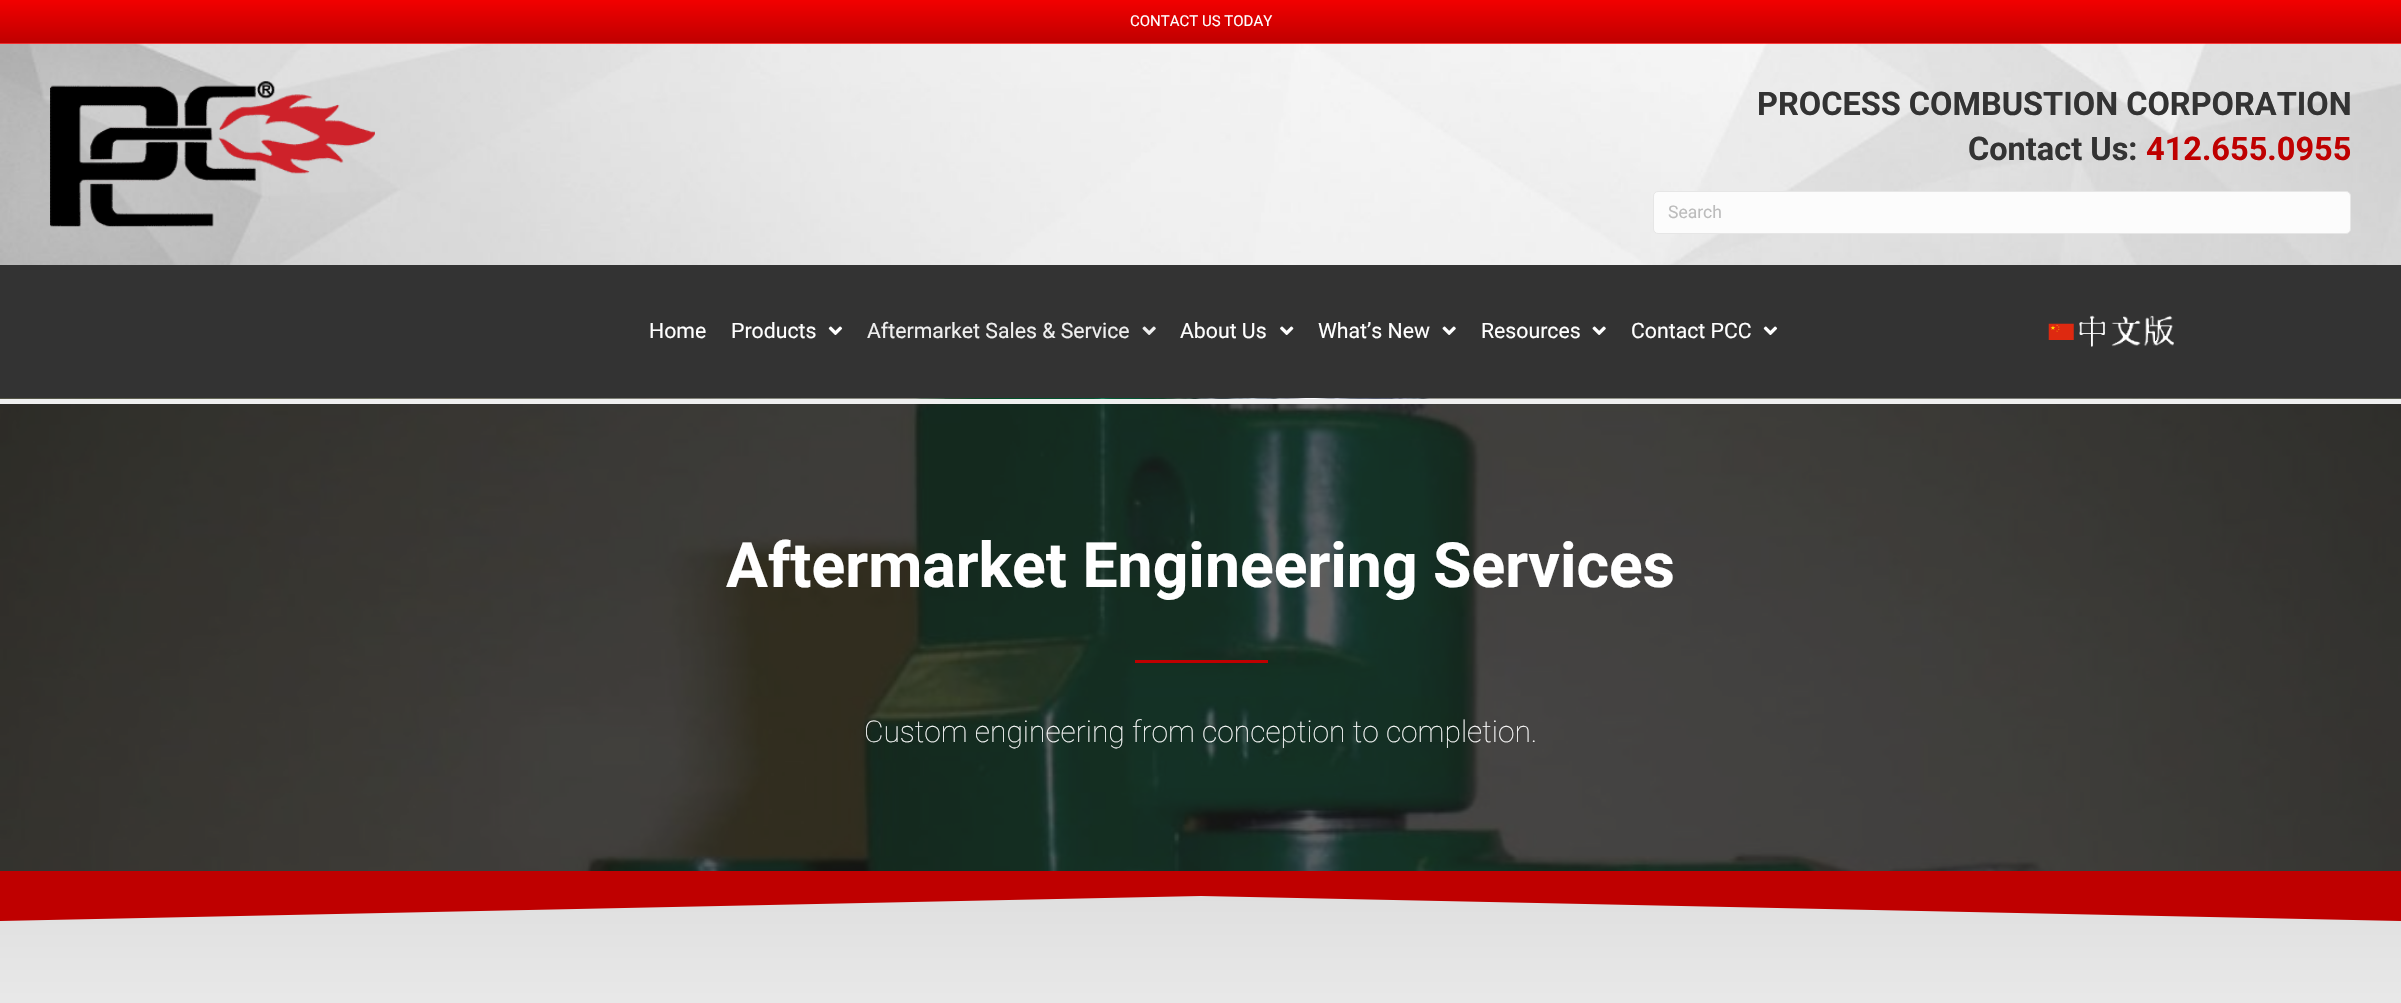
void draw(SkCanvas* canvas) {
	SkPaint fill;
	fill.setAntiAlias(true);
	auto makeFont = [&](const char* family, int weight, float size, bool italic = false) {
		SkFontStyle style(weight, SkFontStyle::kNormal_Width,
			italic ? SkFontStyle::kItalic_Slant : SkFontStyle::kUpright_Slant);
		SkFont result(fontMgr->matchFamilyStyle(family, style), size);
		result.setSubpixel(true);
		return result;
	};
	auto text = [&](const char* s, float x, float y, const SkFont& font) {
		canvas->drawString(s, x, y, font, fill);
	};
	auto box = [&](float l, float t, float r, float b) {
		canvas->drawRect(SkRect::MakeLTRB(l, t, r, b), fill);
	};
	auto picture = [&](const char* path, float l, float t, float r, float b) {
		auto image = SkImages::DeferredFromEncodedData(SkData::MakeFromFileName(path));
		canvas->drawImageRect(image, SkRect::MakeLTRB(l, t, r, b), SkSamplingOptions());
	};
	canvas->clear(0xFFFFFFFF);
	{
		const SkColor colors[] = {0xFFF20000, 0xFFBF0000};
		const float stops[] = {0, 1};
		const SkPoint ends[] = {{1201, 0}, {1201, 43}};
		fill.setShader(SkGradientShader::MakeLinear(ends, colors, stops, 2, SkTileMode::kClamp));
		fill.setAlpha(255);
	}
	box(0, 0, 2401, 43);
	fill.setShader(nullptr);
	fill.setColor(0xFFFF0202);
	box(0, 43, 2401, 44);
	picture("image0.png", 0, 43, 2401, 265);
	picture("image1.png", 50, 81, 375, 227);
	fill.setColor(0xFFFCFCFC);
	canvas->drawRoundRect(SkRect::MakeLTRB(1653.5f, 191.5f, 2350.5f, 233.5f), 4.5f, 4.5f, fill);
	fill.setStyle(SkPaint::kStroke_Style);
	fill.setStrokeWidth(1);
	fill.setColor(0xFFE6E6E6);
	canvas->drawRoundRect(SkRect::MakeLTRB(1653.5f, 191.5f, 2350.5f, 233.5f), 4.5f, 4.5f, fill);
	fill.setStyle(SkPaint::kFill_Style);
	fill.setColor(0xFF333333);
	box(0, 265, 2401, 398);
	picture("image2.png", 828, 326, 843, 335);
	picture("image3.png", 1142, 326, 1156, 335);
	picture("image4.png", 1280, 326, 1294, 335);
	picture("image5.png", 1442, 326, 1456, 335);
	picture("image5.png", 1592, 326, 1606, 335);
	picture("image2.png", 1763, 326, 1778, 335);
	picture("image6.png", 2048, 323, 2074, 340);
	picture("image7.png", 2079, 315, 2174, 347);
	picture("image8.png", 0, 398, 2401, 871);
	fill.setColor(0xFFEFEFEF);
	box(0, 399, 2401, 404);
	fill.setColor(0xFFBF0000);
	box(1135, 660, 1268, 663);
	{
		const SkColor colors[] = {0xFFDDDDDD, 0xFFFFFFFF};
		const float stops[] = {0, 1};
		const SkPoint ends[] = {{1201, 872}, {1201, 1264}};
		fill.setShader(SkGradientShader::MakeLinear(ends, colors, stops, 2, SkTileMode::kClamp));
		fill.setAlpha(255);
	}
	box(0, 896, 2401, 1003);
	fill.setShader(nullptr);
	fill.setColor(0xFFBF0000);
	canvas->drawPath(SkPathBuilder().moveTo(0, 921).lineTo(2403, 921).close().moveTo(0, 871).lineTo(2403, 871).lineTo(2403, 896).lineTo(0, 896).close().moveTo(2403, 921).lineTo(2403, 896).lineTo(0, 896).lineTo(0, 921).lineTo(1201, 896).close().detach(), fill);
	auto font1 = makeFont("Roboto", 400, 15);
	fill.setColor(0xFFFFFFFF);
	text("CONTACT US TODAY", 1130, 26, font1);
	auto font2 = makeFont("Roboto", 700, 32.5f);
	fill.setColor(0xFF333333);
	text("PROCESS COMBUSTION CORPORATION", 1757, 115, font2);
	text("Contact Us:", 1968, 160, font2);
	fill.setColor(0xFFBF0000);
	text("412.655.0955", 2146, 160, font2);
	auto font3 = makeFont("Roboto", 400, 17.5f);
	fill.setColor(0xFFBCBCBC);
	text("Search", 1668, 218, font3);
	auto font4 = makeFont("Roboto", 400, 21.25f);
	fill.setColor(0xFFFFFFFF);
	text("Home", 649, 338, font4);
	text("Products", 731, 338, font4);
	fill.setColor(0xFFEFEFEF);
	text("Aftermarket Sales & Service", 867, 338, font4);
	fill.setColor(0xFFFFFFFF);
	text("About Us", 1180, 338, font4);
	text("What’s New", 1318, 338, font4);
	text("Resources", 1481, 338, font4);
	text("Contact PCC", 1631, 338, font4);
	auto font5 = makeFont("Roboto", 700, 62.5f);
	text("Aftermarket Engineering Services", 726, 587, font5);
	auto font6 = makeFont("Roboto", 100, 30);
	text("Custom engineering from conception to completion.", 864, 742, font6);
}
